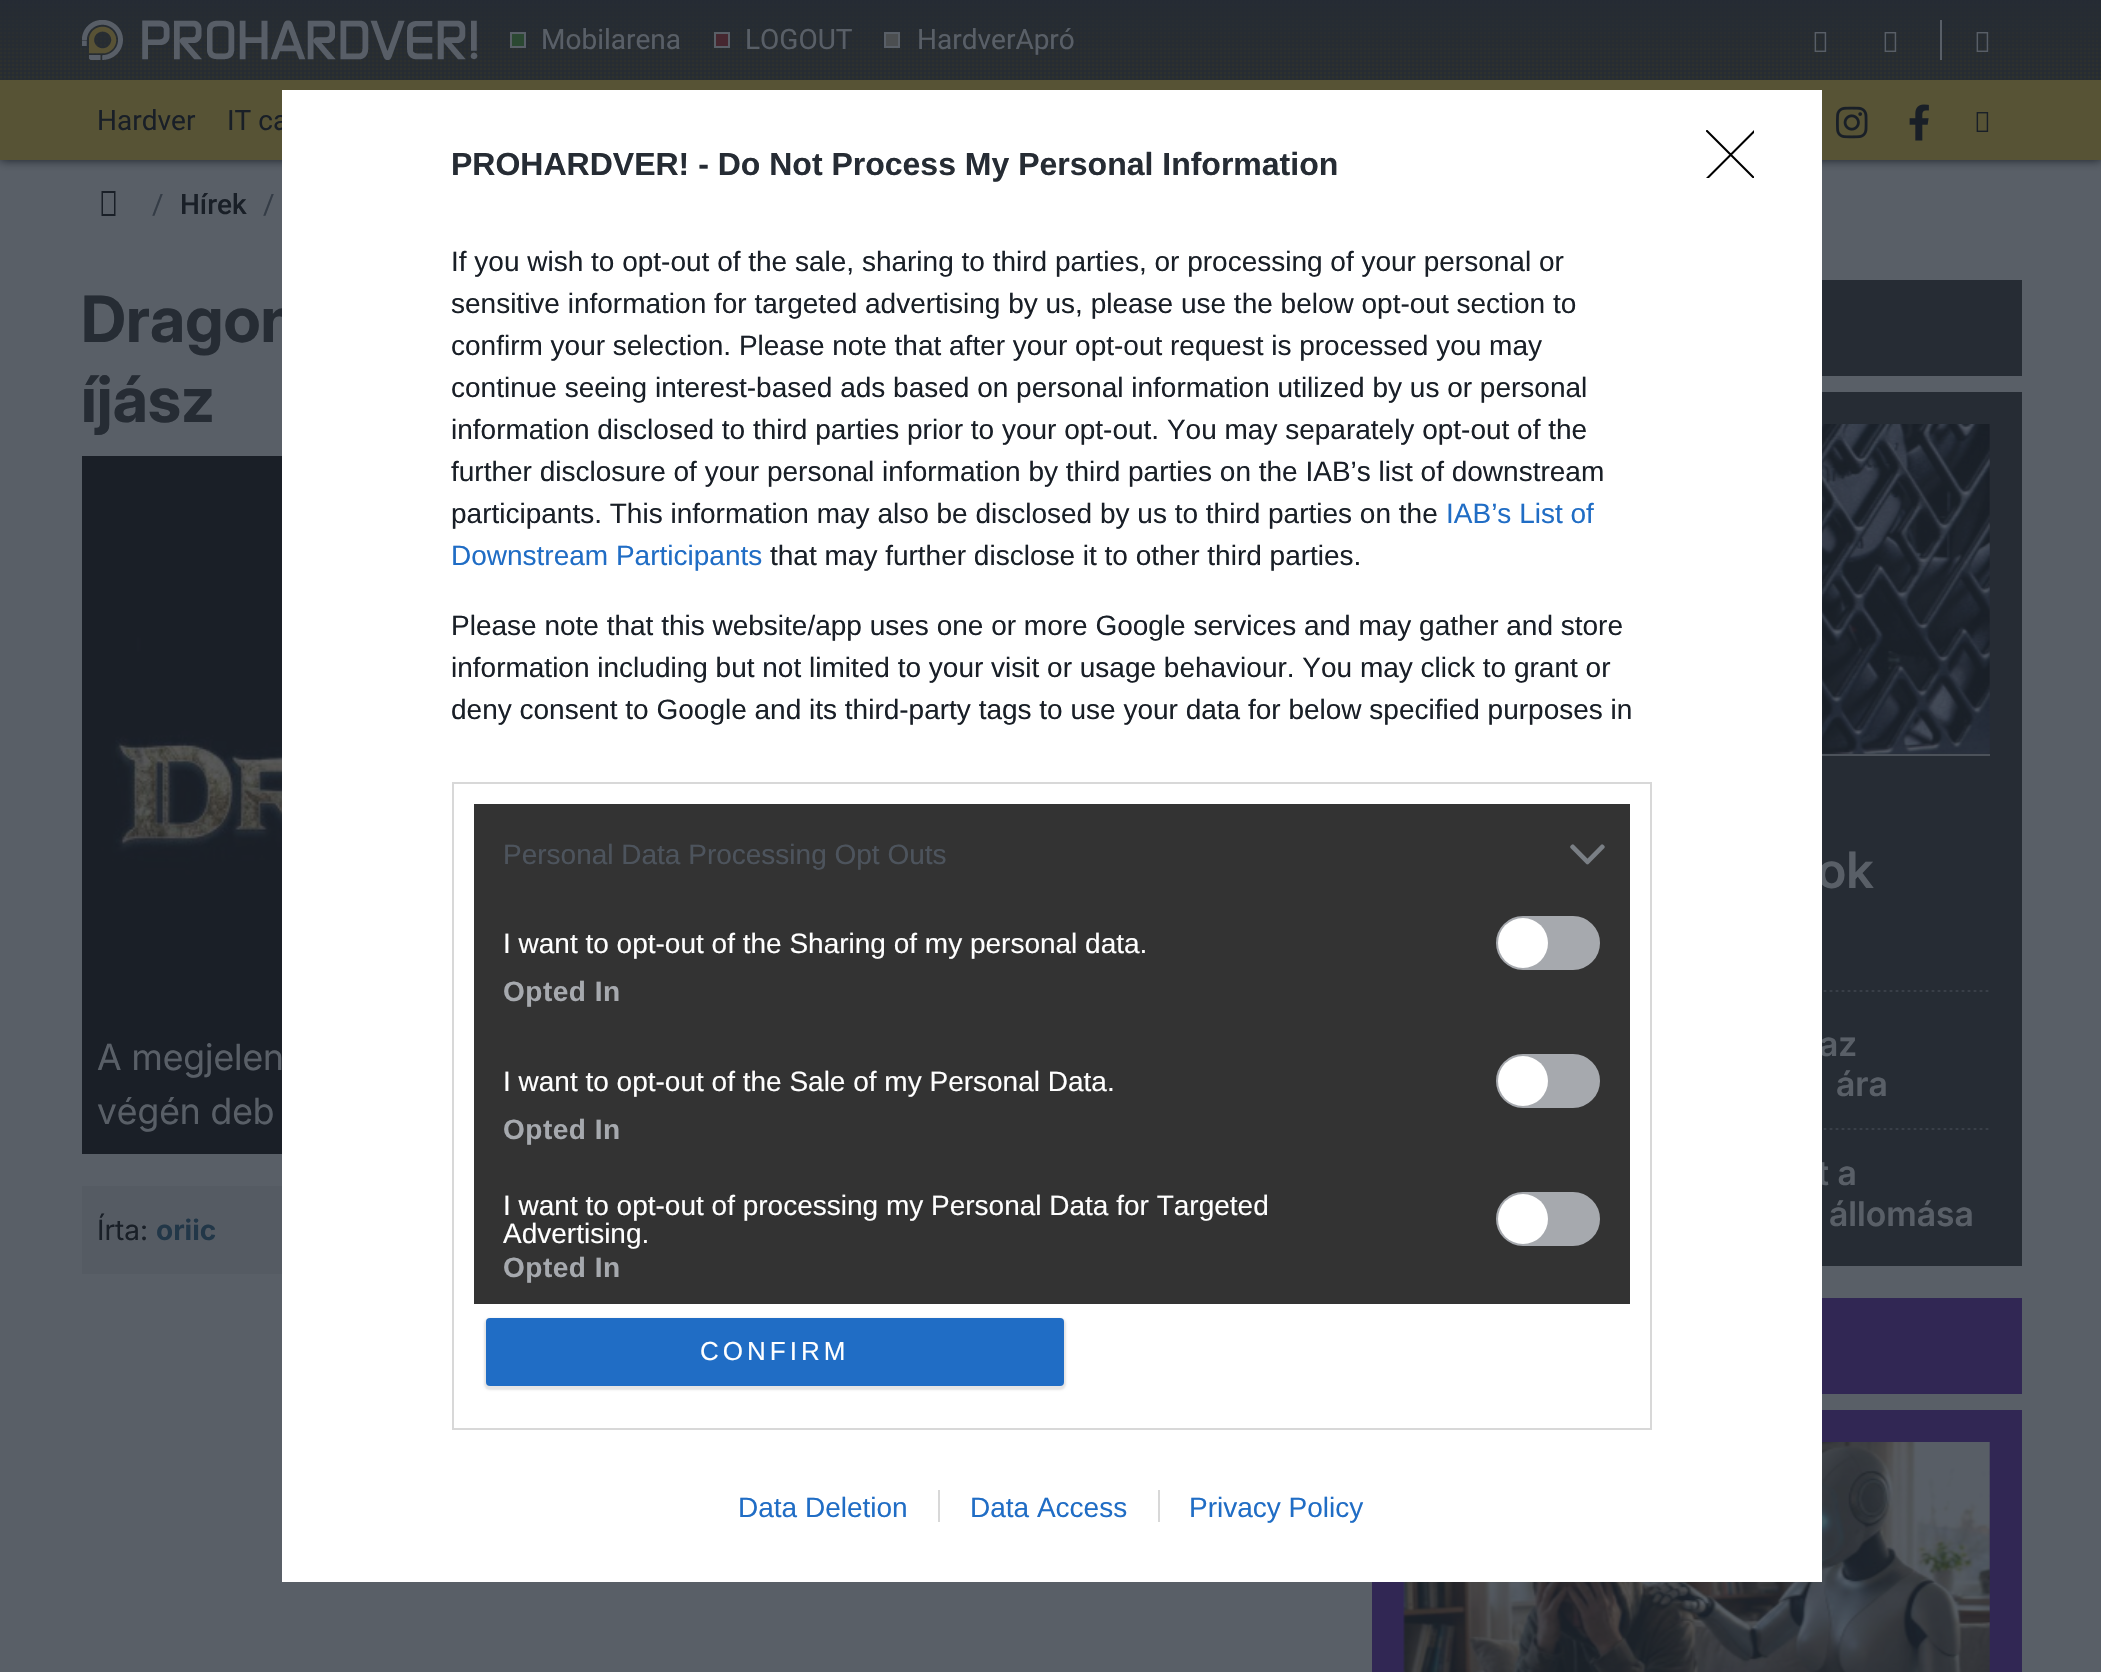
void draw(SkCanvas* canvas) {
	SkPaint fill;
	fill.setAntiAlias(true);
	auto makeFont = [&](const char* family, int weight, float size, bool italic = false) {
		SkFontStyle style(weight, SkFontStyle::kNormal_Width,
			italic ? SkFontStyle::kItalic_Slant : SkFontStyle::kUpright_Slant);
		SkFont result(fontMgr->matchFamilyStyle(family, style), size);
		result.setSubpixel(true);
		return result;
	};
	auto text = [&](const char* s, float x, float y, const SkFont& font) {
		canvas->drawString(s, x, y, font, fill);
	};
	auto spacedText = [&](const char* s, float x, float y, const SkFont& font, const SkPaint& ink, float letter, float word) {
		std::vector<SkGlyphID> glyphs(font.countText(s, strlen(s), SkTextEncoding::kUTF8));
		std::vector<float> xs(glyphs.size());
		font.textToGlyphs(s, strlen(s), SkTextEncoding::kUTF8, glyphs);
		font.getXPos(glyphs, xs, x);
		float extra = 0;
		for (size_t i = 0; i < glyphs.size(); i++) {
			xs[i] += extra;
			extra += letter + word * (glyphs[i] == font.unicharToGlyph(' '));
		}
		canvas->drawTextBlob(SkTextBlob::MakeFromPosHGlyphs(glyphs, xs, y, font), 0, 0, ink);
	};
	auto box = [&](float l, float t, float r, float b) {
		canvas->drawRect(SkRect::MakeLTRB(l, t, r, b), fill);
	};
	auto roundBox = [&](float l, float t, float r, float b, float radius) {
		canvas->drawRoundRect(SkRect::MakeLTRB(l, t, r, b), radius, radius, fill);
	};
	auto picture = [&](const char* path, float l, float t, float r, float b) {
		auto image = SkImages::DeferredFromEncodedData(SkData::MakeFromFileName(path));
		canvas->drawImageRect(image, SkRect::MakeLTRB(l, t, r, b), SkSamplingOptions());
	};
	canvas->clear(0xFF595F67);
	fill.setColor(0xFF191F27);
	fill.setMaskFilter(SkMaskFilter::MakeBlur(kNormal_SkBlurStyle, 5));
	canvas->drawRect(SkRect::MakeLTRB(0, 80, 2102, 160), fill);
	fill.setMaskFilter(nullptr);
	picture("image0.png", 0, 0, 2101, 80);
	picture("image1.png", 82, 20, 478, 60);
	fill.setColor(0xFF2B4832);
	canvas->drawRect(SkRect::MakeLTRB(511, 33, 525, 47), fill);
	fill.setStyle(SkPaint::kStroke_Style);
	fill.setStrokeWidth(2);
	fill.setColor(0xFF595F67);
	canvas->drawRect(SkRect::MakeLTRB(511, 33, 525, 47), fill);
	fill.setStyle(SkPaint::kFill_Style);
	fill.setColor(0xFF462730);
	canvas->drawRect(SkRect::MakeLTRB(715, 33, 729, 47), fill);
	fill.setStyle(SkPaint::kStroke_Style);
	fill.setColor(0xFF595F67);
	canvas->drawRect(SkRect::MakeLTRB(715, 33, 729, 47), fill);
	fill.setStyle(SkPaint::kFill_Style);
	fill.setColor(0xFF4B4E50);
	canvas->drawRect(SkRect::MakeLTRB(885, 33, 899, 47), fill);
	fill.setStyle(SkPaint::kStroke_Style);
	fill.setColor(0xFF595F67);
	canvas->drawRect(SkRect::MakeLTRB(885, 33, 899, 47), fill);
	picture("image2.png", 1814, 32, 1827, 52);
	picture("image3.png", 1884, 32, 1897, 52);
	fill.setStyle(SkPaint::kFill_Style);
	box(1940, 20, 1942, 60);
	picture("image4.png", 1976, 32, 1989, 52);
	fill.setColor(0xFF575335);
	box(0, 80, 2101, 160);
	picture("image5.png", 1836, 106, 1868, 139);
	picture("image6.png", 1909, 104, 1929, 141);
	picture("image7.png", 1976, 112, 1989, 132);
	fill.setColor(0xFF191F27);
	canvas->drawPath(SkPathBuilder().moveTo(101.5f, 216).lineTo(101.5f, 191).lineTo(115.5f, 191).lineTo(115.5f, 216).close().moveTo(103, 214).lineTo(114, 214).lineTo(114, 193).lineTo(103, 193).close().detach(), fill);
	picture("image9.png", 82, 456, 282, 1154);
	fill.setColor(0xFF555B63);
	box(82, 1186, 282, 1274);
	fill.setColor(0xFF262C34);
	box(1822, 280, 2022, 376);
	box(1822, 392, 2022, 1266);
	fill.setColor(0xFF4C525A);
	box(1822, 754, 1990, 756);
	picture("image10.png", 1822, 424, 1990, 754);
	picture("image11.png", 1823, 990, 1989, 992);
	picture("image11.png", 1823, 1128, 1989, 1130);
	fill.setColor(0xFF312754);
	box(1822, 1298, 2022, 1394);
	box(1372, 1410, 2022, 1672);
	picture("image12.png", 1403, 1442, 1990, 1672);
	auto font1 = makeFont("Roboto", 400, 28);
	fill.setColor(0xFF595F67);
	text("Mobilarena", 541, 49, font1);
	text("LOGOUT", 745, 49, font1);
	text("HardverApró", 917, 49, font1);
	fill.setColor(0xFF191F27);
	text("Hardver", 97, 130, font1);
	text("IT ca", 227, 130, font1);
	fill.setColor(0xFF343C46);
	text("/", 152, 214, font1);
	auto font2 = makeFont("Roboto", 500, 28);
	fill.setColor(0xFF191F27);
	text("Hírek", 180, 214, font2);
	fill.setColor(0xFF343C46);
	text("/", 263, 214, font1);
	auto font3 = makeFont("Inter", 700, 64);
	fill.setColor(0xFF262C34);
	text("Dragon", 81, 342, font3);
	text("íjász", 81, 422, font3);
	auto font4 = makeFont("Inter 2", 400, 36);
	fill.setColor(0xFF595F67);
	text("A megjelen", 97, 1070, font4);
	text("végén deb", 97, 1124, font4);
	auto font5 = makeFont("Inter", 400, 28);
	fill.setColor(0xFF191F27);
	text("Írta:", 97, 1240, font5);
	auto font6 = makeFont("Inter 2", 700, 28);
	fill.setColor(0xFF223748);
	text("oriic", 156, 1240, font6);
	auto font7 = makeFont("Inter", 600, 50);
	fill.setColor(0xFF595F67);
	text("ok", 1817, 888, font7);
	auto font8 = makeFont("Inter 2", 600, 34);
	text("az", 1819, 1056, font8);
	text("ára", 1836, 1096, font8);
	text("t a", 1817, 1185, font8);
	fill.setColor(0xFFFFFFFF);
	box(282, 90, 1822, 1582);
	fill.setStyle(SkPaint::kStroke_Style);
	fill.setColor(0xFFD8D8D8);
	canvas->drawRect(SkRect::MakeLTRB(453, 783, 1651, 1429), fill);
	fill.setStyle(SkPaint::kFill_Style);
	fill.setColor(0xFF333333);
	box(474, 804, 1630, 1304);
	fill.setColor(0xFFA6A9AE);
	canvas->drawRoundRect(SkRect::MakeLTRB(1497, 1193, 1599, 1245), 26, 26, fill);
	fill.setStyle(SkPaint::kStroke_Style);
	canvas->drawRoundRect(SkRect::MakeLTRB(1497, 1193, 1599, 1245), 26, 26, fill);
	fill.setStyle(SkPaint::kFill_Style);
	fill.setColor(0xFFFFFFFF);
	canvas->drawCircle(1523, 1219, 25, fill);
	fill.setColor(0xFFA6A9AE);
	canvas->drawRoundRect(SkRect::MakeLTRB(1497, 1055, 1599, 1107), 26, 26, fill);
	fill.setStyle(SkPaint::kStroke_Style);
	canvas->drawRoundRect(SkRect::MakeLTRB(1497, 1055, 1599, 1107), 26, 26, fill);
	fill.setStyle(SkPaint::kFill_Style);
	fill.setColor(0xFFFFFFFF);
	canvas->drawCircle(1523, 1081, 25, fill);
	fill.setColor(0xFFA6A9AE);
	canvas->drawRoundRect(SkRect::MakeLTRB(1497, 917, 1599, 969), 26, 26, fill);
	fill.setStyle(SkPaint::kStroke_Style);
	canvas->drawRoundRect(SkRect::MakeLTRB(1497, 917, 1599, 969), 26, 26, fill);
	fill.setStyle(SkPaint::kFill_Style);
	fill.setColor(0xFFFFFFFF);
	canvas->drawCircle(1523, 943, 25, fill);
	picture("image8.png", 1570, 844, 1605, 865);
	canvas->save();
	canvas->clipRect(SkRect::MakeLTRB(1706, 130, 1754, 178));
	fill.setStyle(SkPaint::kStroke_Style);
	fill.setStrokeWidth(2.1f);
	fill.setStrokeCap(SkPaint::kRound_Cap);
	fill.setStrokeJoin(SkPaint::kRound_Join);
	fill.setColor(0xFF000000);
	canvas->drawPath(SkPathBuilder().moveTo(1707, 131).lineTo(1754.5f, 178.5f).moveTo(1754.5f, 131).lineTo(1707, 178.5f).detach(), fill);
	canvas->restore();
	fill.setStyle(SkPaint::kFill_Style);
	fill.setColor(0x1A000000);
	fill.setMaskFilter(SkMaskFilter::MakeBlur(kNormal_SkBlurStyle, 1));
	canvas->drawRoundRect(SkRect::MakeLTRB(484, 1318, 1066, 1390), 6, 6, fill);
	fill.setMaskFilter(nullptr);
	fill.setColor(0xFF206DC5);
	roundBox(486, 1318, 1064, 1386, 4);
	auto font9 = makeFont("Liberation Sans", 400, 26);
	fill.setColor(0xFFFFFFFF);
	spacedText("CONFIRM", 700, 1360, font9, fill, 4, 0);
	auto font10 = makeFont("Liberation Sans", 700, 28);
	fill.setColor(0xFFA6A9AE);
	spacedText("Opted In", 503, 1277, font10, fill, 0.5f, 0);
	auto font11 = makeFont("Liberation Sans", 400, 28);
	fill.setColor(0xFFFFFFFF);
	text("Advertising.", 503, 1243, font11);
	text("I want to opt-out of processing my Personal Data for Targeted", 503, 1215, font11);
	fill.setColor(0xFFA6A9AE);
	spacedText("Opted In", 503, 1139, font10, fill, 0.5f, 0);
	fill.setColor(0xFFFFFFFF);
	text("I want to opt-out of the Sale of my Personal Data.", 503, 1091, font11);
	fill.setColor(0xFFA6A9AE);
	spacedText("Opted In", 503, 1001, font10, fill, 0.5f, 0);
	fill.setColor(0xFFFFFFFF);
	text("I want to opt-out of the Sharing of my personal data.", 503, 953, font11);
	fill.setColor(0xFF4D545D);
	text("Personal Data Processing Opt Outs", 503, 864, font11);
	fill.setColor(0xFF191F27);
	text("deny consent to Google and its third-party tags to use your data for below specified purposes in", 451, 719, font11);
	text("information including but not limited to your visit or usage behaviour. You may click to grant or", 451, 677, font11);
	text("Please note that this website/app uses one or more Google services and may gather and store", 451, 635, font11);
	text("that may further disclose it to other third parties.", 770, 565, font11);
	fill.setColor(0xFF206DC5);
	text("Downstream Participants", 451, 565, font11);
	text("IAB’s List of", 1446, 523, font11);
	fill.setColor(0xFF191F27);
	text("participants. This information may also be disclosed by us to third parties on the", 451, 523, font11);
	text("further disclosure of your personal information by third parties on the IAB’s list of downstream", 451, 481, font11);
	text("information disclosed to third parties prior to your opt-out. You may separately opt-out of the", 451, 439, font11);
	text("continue seeing interest-based ads based on personal information utilized by us or personal", 451, 397, font11);
	text("confirm your selection. Please note that after your opt-out request is processed you may", 451, 355, font11);
	text("sensitive information for targeted advertising by us, please use the below opt-out section to", 451, 313, font11);
	text("If you wish to opt-out of the sale, sharing to third parties, or processing of your personal or", 451, 271, font11);
	fill.setColor(0xFF206DC5);
	text("Privacy Policy", 1189, 1517, font11);
	fill.setColor(0xFFD8D8D8);
	box(1158, 1490, 1160, 1522);
	fill.setColor(0xFF206DC5);
	text("Data Access", 970, 1517, font11);
	fill.setColor(0xFFD8D8D8);
	box(938, 1490, 940, 1522);
	fill.setColor(0xFF206DC5);
	text("Data Deletion", 738, 1517, font11);
	auto font12 = makeFont("Liberation Sans", 700, 32);
	fill.setColor(0xFF262C34);
	text("PROHARDVER! - Do Not Process My Personal Information", 451, 175, font12);
	fill.setColor(0xFF595F67);
	text("állomása", 1829, 1226, font8);
}
